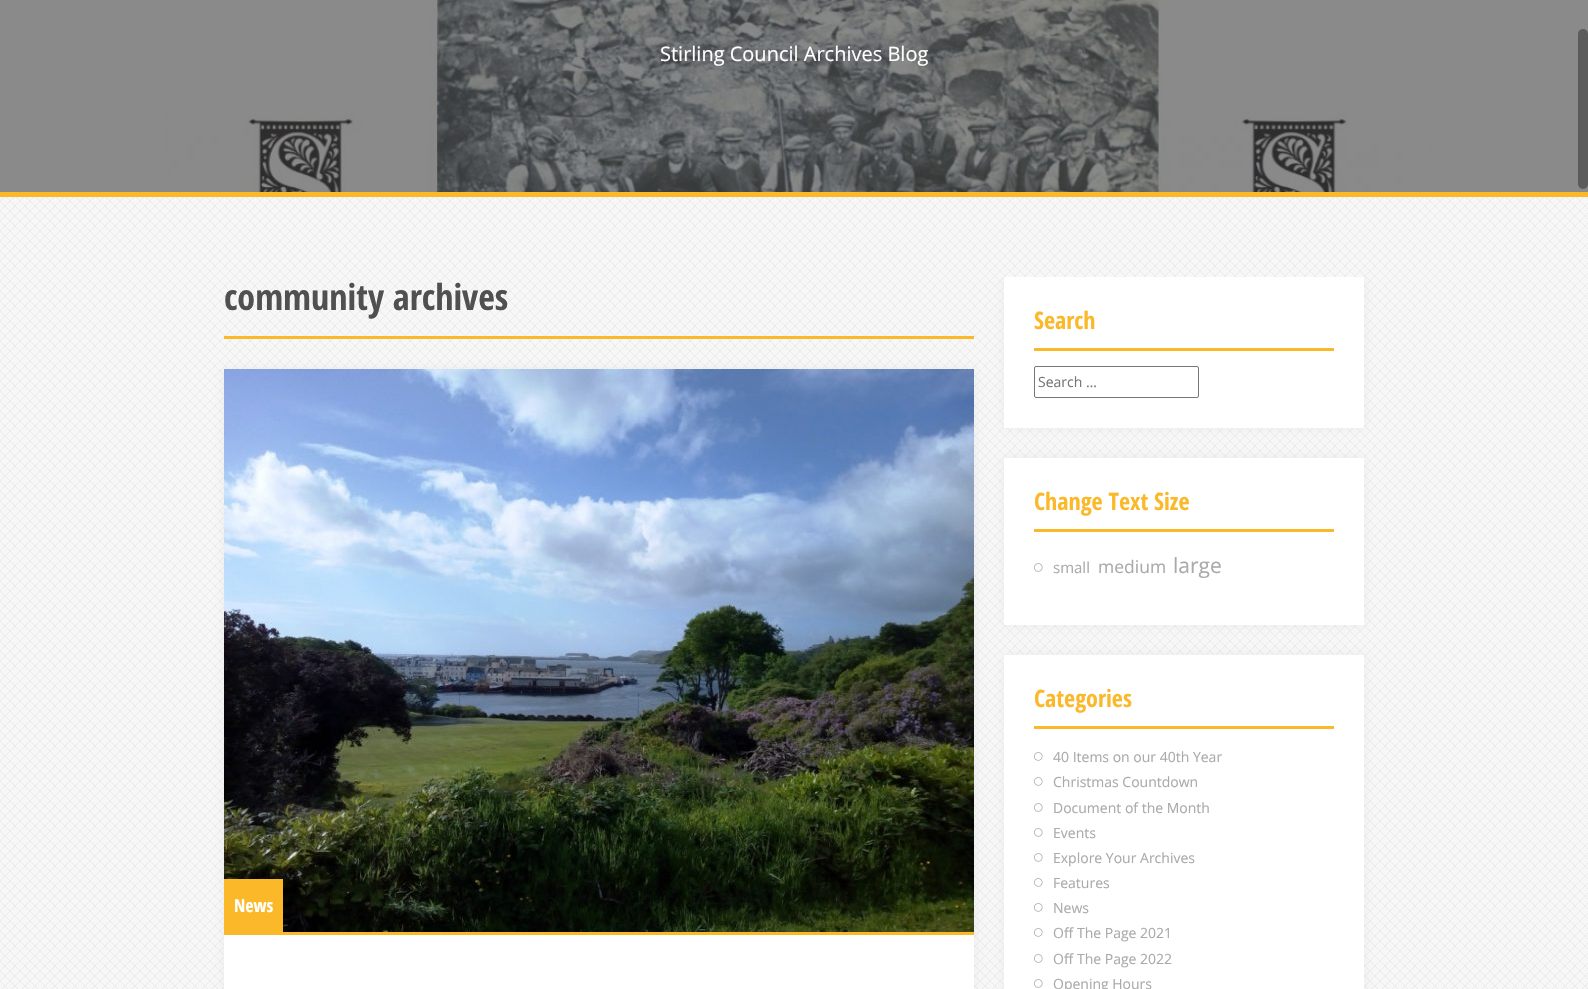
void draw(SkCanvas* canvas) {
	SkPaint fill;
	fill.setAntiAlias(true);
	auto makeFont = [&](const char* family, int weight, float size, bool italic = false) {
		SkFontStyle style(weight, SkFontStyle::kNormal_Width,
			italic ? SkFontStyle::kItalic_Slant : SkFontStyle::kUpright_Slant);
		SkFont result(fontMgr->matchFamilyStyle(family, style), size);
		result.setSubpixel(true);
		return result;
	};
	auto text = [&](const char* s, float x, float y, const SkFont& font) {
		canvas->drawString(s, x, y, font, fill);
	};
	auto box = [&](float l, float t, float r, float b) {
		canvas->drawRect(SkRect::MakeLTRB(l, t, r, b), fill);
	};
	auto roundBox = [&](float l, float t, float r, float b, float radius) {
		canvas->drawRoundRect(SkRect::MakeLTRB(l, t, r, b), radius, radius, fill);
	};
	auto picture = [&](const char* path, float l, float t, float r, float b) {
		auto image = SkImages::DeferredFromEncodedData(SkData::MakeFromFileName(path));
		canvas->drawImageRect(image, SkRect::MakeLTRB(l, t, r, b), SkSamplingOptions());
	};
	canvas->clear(0xFFF7F7F7);
	picture("image0.png", 0, 197, 1588, 989);
	fill.setColor(0xFF3C3C3C);
	box(0, 0, 1588, 192);
	fill.setColor(0xFFFBB829);
	box(0, 192, 1588, 197);
	picture("image1.png", 0, 0, 1588, 192);
	box(224, 336, 974, 339);
	fill.setColor(0x1A828E94);
	fill.setMaskFilter(SkMaskFilter::MakeBlur(kNormal_SkBlurStyle, 5));
	canvas->drawRect(SkRect::MakeLTRB(224, 369, 974, 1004), fill);
	fill.setMaskFilter(nullptr);
	fill.setColor(0xFFFFFFFF);
	box(224, 935, 974, 989);
	fill.setColor(0xFFFBB829);
	box(224, 932, 974, 935);
	picture("image2.png", 224, 369, 974, 932);
	box(224, 879, 283, 932);
	canvas->save();
	canvas->clipRect(SkRect::MakeLTRB(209, 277, 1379, 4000));
	fill.setColor(0x1A828E94);
	fill.setMaskFilter(SkMaskFilter::MakeBlur(kNormal_SkBlurStyle, 5));
	canvas->drawRect(SkRect::MakeLTRB(1004, 277, 1364, 428), fill);
	fill.setMaskFilter(nullptr);
	canvas->restore();
	fill.setColor(0xFFFFFFFF);
	box(1004, 277, 1364, 428);
	fill.setColor(0xFFFBB829);
	box(1034, 348, 1334, 351);
	fill.setStyle(SkPaint::kStroke_Style);
	fill.setStrokeWidth(1);
	fill.setColor(0xFF767676);
	canvas->drawRoundRect(SkRect::MakeLTRB(1034.5f, 366.5f, 1198.5f, 397.5f), 1.5f, 1.5f, fill);
	fill.setStyle(SkPaint::kFill_Style);
	fill.setColor(0x1A828E94);
	fill.setMaskFilter(SkMaskFilter::MakeBlur(kNormal_SkBlurStyle, 5));
	canvas->drawRect(SkRect::MakeLTRB(1004, 458, 1364, 625), fill);
	fill.setMaskFilter(nullptr);
	fill.setColor(0xFFFFFFFF);
	box(1004, 458, 1364, 625);
	fill.setColor(0xFFFBB829);
	box(1034, 529, 1334, 532);
	picture("image3.png", 1034, 563, 1043, 572);
	fill.setColor(0x1A828E94);
	fill.setMaskFilter(SkMaskFilter::MakeBlur(kNormal_SkBlurStyle, 5));
	canvas->drawRect(SkRect::MakeLTRB(1004, 655, 1364, 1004), fill);
	fill.setMaskFilter(nullptr);
	fill.setColor(0xFFFFFFFF);
	box(1004, 655, 1364, 989);
	fill.setColor(0xFFFBB829);
	box(1034, 726, 1334, 729);
	picture("image3.png", 1034, 752, 1043, 761);
	picture("image3.png", 1034, 777, 1043, 786);
	picture("image3.png", 1034, 803, 1043, 812);
	picture("image3.png", 1034, 828, 1043, 837);
	picture("image3.png", 1034, 853, 1043, 862);
	picture("image3.png", 1034, 878, 1043, 887);
	picture("image3.png", 1034, 903, 1043, 912);
	picture("image3.png", 1034, 928, 1043, 937);
	picture("image3.png", 1034, 954, 1043, 963);
	picture("image3.png", 1034, 979, 1043, 988);
	fill.setColor(0xFF5B5B5B);
	roundBox(1578, 29, 1588, 189, 5);
	auto font1 = makeFont("Open Sans", 400, 20);
	fill.setColor(0xFFFFFFFF);
	text("Stirling Council Archives Blog", 660, 61, font1);
	auto font2 = makeFont("Open Sans Condensed", 700, 36);
	fill.setColor(0xFF505050);
	text("community archives", 224, 310, font2);
	auto font3 = makeFont("Open Sans Condensed", 700, 18);
	fill.setColor(0xFFFFFFFF);
	text("News", 234, 912, font3);
	auto font4 = makeFont("Open Sans Condensed", 700, 24);
	fill.setColor(0xFFFBB829);
	text("Search", 1034, 329, font4);
	auto font5 = makeFont("Open Sans", 400, 14);
	fill.setColor(0xFF757575);
	text("Search …", 1038, 387, font5);
	fill.setColor(0xFFFBB829);
	text("Change Text Size", 1034, 510, font4);
	auto font6 = makeFont("Open Sans", 400, 15);
	fill.setColor(0xFFAAAAAA);
	text("small", 1053, 573, font6);
	auto font7 = makeFont("Open Sans", 400, 17.5f);
	text("medium", 1098, 573, font7);
	auto font8 = makeFont("Open Sans", 400, 21);
	text("large", 1173, 573, font8);
	fill.setColor(0xFFFBB829);
	text("Categories", 1034, 707, font4);
	fill.setColor(0xFFAAAAAA);
	text("40 Items on our 40th Year", 1053, 762, font5);
	text("Christmas Countdown", 1053, 787, font5);
	text("Document of the Month", 1053, 813, font5);
	text("Events", 1053, 838, font5);
	text("Explore Your Archives", 1053, 863, font5);
	text("Features", 1053, 888, font5);
	text("News", 1053, 913, font5);
	text("Off The Page 2021", 1053, 938, font5);
	text("Off The Page 2022", 1053, 964, font5);
	text("Opening Hours", 1053, 989, font5);
}
